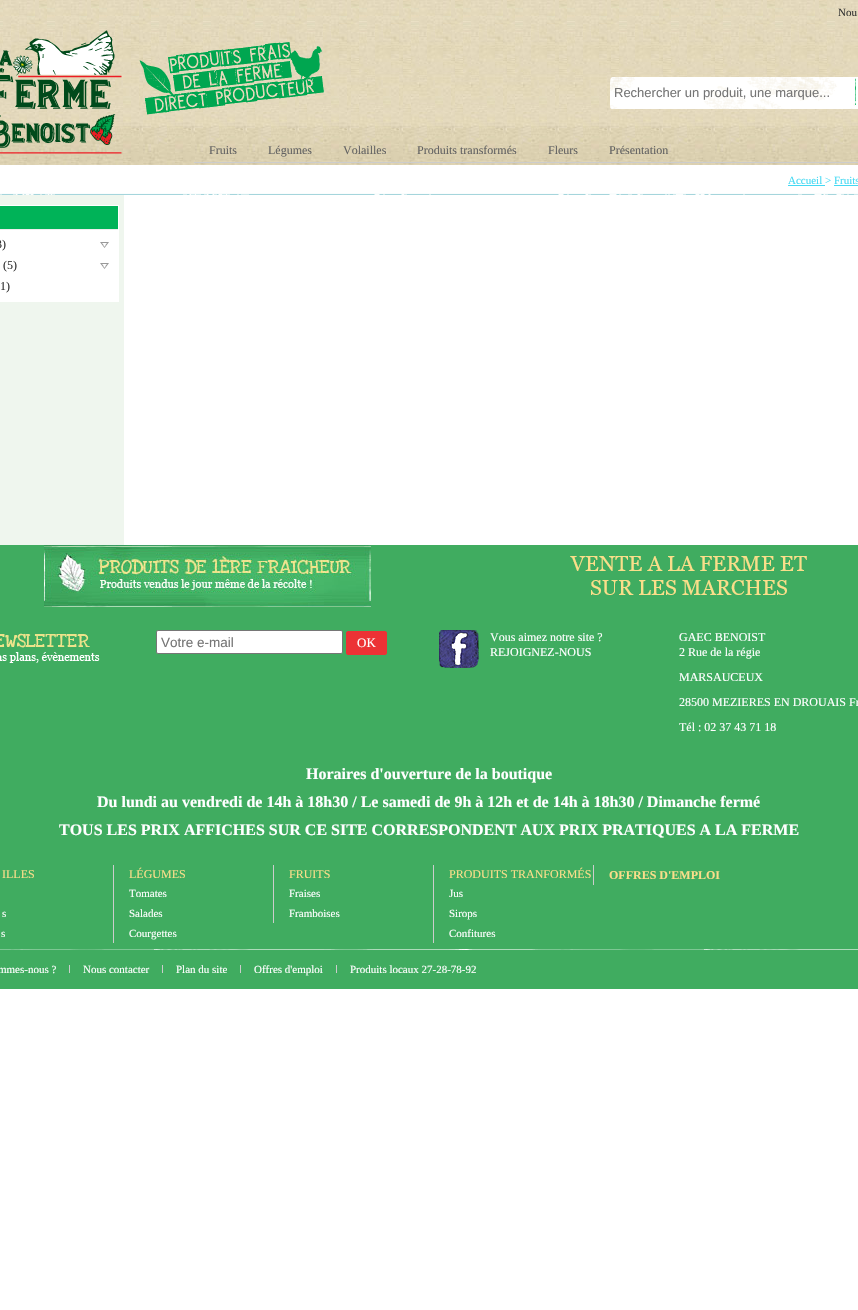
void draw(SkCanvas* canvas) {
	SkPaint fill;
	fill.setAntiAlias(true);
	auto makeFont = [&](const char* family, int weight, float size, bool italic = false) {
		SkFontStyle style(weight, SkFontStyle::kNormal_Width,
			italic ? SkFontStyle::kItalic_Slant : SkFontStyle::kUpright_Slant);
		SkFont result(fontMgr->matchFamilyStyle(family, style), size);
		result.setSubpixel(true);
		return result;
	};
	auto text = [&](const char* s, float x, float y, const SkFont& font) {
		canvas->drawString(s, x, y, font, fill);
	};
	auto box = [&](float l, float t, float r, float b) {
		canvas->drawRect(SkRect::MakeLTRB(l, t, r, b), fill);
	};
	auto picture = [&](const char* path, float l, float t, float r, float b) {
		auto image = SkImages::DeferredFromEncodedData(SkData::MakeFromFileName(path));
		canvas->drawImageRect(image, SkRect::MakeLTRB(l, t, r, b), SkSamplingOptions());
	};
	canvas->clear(0xFFFFFFFF);
	picture("image0.png", 0, 0, 858, 165);
	picture("image1.png", 0, 30, 324, 154);
	picture("image2.png", 610, 77, 858, 109);
	picture("image3.png", 855, 78, 858, 109);
	fill.setColor(0xFFCCCCCC);
	box(194, 162, 858, 163);
	picture("image4.png", 0, 193, 858, 195);
	fill.setColor(0xFF44D9F3);
	box(788, 185, 825, 186);
	box(834, 185, 858, 186);
	fill.setColor(0xFFEFF6EE);
	box(0, 195, 124, 545);
	fill.setColor(0xFFFFFFFF);
	box(0, 205, 119, 302);
	fill.setColor(0xFF00B358);
	box(0, 206, 118, 229);
	fill.setColor(0xFFEEEEEE);
	box(0, 229, 118, 230);
	picture("image5.png", 100, 242, 109, 248);
	picture("image5.png", 100, 263, 109, 269);
	fill.setColor(0xFF40AC60);
	box(0, 545, 858, 949);
	picture("image6.png", 44, 545, 371, 607);
	picture("image7.png", 570, 556, 807, 595);
	picture("image8.png", 0, 633, 100, 663);
	fill.setColor(0xFFFFFFFF);
	canvas->drawRoundRect(SkRect::MakeLTRB(156.5f, 630.5f, 342.5f, 653.5f), 1.5f, 1.5f, fill);
	fill.setStyle(SkPaint::kStroke_Style);
	fill.setStrokeWidth(1);
	fill.setColor(0xFF767676);
	canvas->drawRoundRect(SkRect::MakeLTRB(156.5f, 630.5f, 342.5f, 653.5f), 1.5f, 1.5f, fill);
	fill.setStyle(SkPaint::kFill_Style);
	fill.setColor(0xFFEC3235);
	canvas->drawRoundRect(SkRect::MakeLTRB(346.5f, 631.5f, 386.5f, 654.5f), 1.5f, 1.5f, fill);
	fill.setStyle(SkPaint::kStroke_Style);
	canvas->drawRoundRect(SkRect::MakeLTRB(346.5f, 631.5f, 386.5f, 654.5f), 1.5f, 1.5f, fill);
	picture("image9.png", 439, 630, 479, 668);
	fill.setStyle(SkPaint::kFill_Style);
	fill.setColor(0xFFCCCCCC);
	box(113, 865, 114, 943);
	box(273, 865, 274, 923);
	box(433, 865, 434, 943);
	box(593, 865, 594, 885);
	fill.setColor(0xFF40AC60);
	box(0, 950, 858, 989);
	picture("image10.png", 0, 949, 858, 950);
	fill.setColor(0xFFCCCCCC);
	box(69, 965, 70, 973);
	box(162, 965, 163, 973);
	box(240, 965, 241, 973);
	box(336, 965, 337, 973);
	auto font1 = makeFont("Liberation Serif", 400, 11);
	fill.setColor(0xFF333333);
	text("Nou", 838, 16, font1);
	auto font2 = makeFont("Liberation Sans", 400, 13);
	fill.setColor(0xFF757575);
	text("Rechercher un produit, une marque...", 614, 97, font2);
	auto font3 = makeFont("Liberation Serif", 400, 12);
	fill.setColor(0xFF626262);
	text("Fruits", 209, 154, font3);
	text("Légumes", 268, 154, font3);
	text("Volailles", 343, 154, font3);
	text("Produits transformés", 417, 154, font3);
	text("Fleurs", 548, 154, font3);
	text("Présentation", 609, 154, font3);
	fill.setColor(0xFF44D9F3);
	text("Accueil > Fruits", 788, 184, font1);
	fill.setColor(0xFF333333);
	text("3)", -4, 248, font3);
	text("(5)", 3, 269, font3);
	text("1)", 0, 290, font3);
	auto font4 = makeFont("Liberation Sans", 400, 13.5f);
	fill.setColor(0xFF757575);
	text("Votre e-mail", 161, 647, font4);
	auto font5 = makeFont("Liberation Serif", 400, 13);
	fill.setColor(0xFFFFFFFF);
	text("OK", 357, 647, font5);
	text("Vous aimez notre site ?", 490, 641, font3);
	text("REJOIGNEZ-NOUS", 490, 656, font3);
	text("GAEC BENOIST", 679, 641, font3);
	text("2 Rue de la régie", 679, 656, font3);
	text("MARSAUCEUX", 679, 681, font3);
	text("28500 MEZIERES EN DROUAIS Fr", 679, 706, font3);
	text("Tél : 02 37 43 71 18", 679, 731, font3);
	auto font6 = makeFont("Liberation Serif", 700, 16);
	text("Horaires d'ouverture de la boutique", 306, 779, font6);
	text("Du lundi au vendredi de 14h à 18h30 / Le samedi de 9h à 12h et de 14h à 18h30 / Dimanche fermé", 97, 807, font6);
	text("TOUS LES PRIX AFFICHES SUR CE SITE CORRESPONDENT AUX PRIX PRATIQUES A LA FERME", 59, 835, font6);
	fill.setColor(0xFFFADE8A);
	text("ILLES", 2, 878, font3);
	fill.setColor(0xFFFFFFFF);
	text("s", 2, 917, font1);
	text("s", 1, 937, font1);
	fill.setColor(0xFFFADE8A);
	text("LÉGUMES", 129, 878, font3);
	fill.setColor(0xFFFFFFFF);
	text("Tomates", 129, 897, font1);
	text("Salades", 129, 917, font1);
	text("Courgettes", 129, 937, font1);
	fill.setColor(0xFFFADE8A);
	text("FRUITS", 289, 878, font3);
	fill.setColor(0xFFFFFFFF);
	text("Fraises", 289, 897, font1);
	text("Framboises", 289, 917, font1);
	fill.setColor(0xFFFADE8A);
	text("PRODUITS TRANFORMÉS", 449, 878, font3);
	fill.setColor(0xFFFFFFFF);
	text("Jus", 449, 897, font1);
	text("Sirops", 449, 917, font1);
	text("Confitures", 449, 937, font1);
	auto font7 = makeFont("Liberation Serif", 700, 12);
	fill.setColor(0xFFFADE8A);
	text("OFFRES D'EMPLOI", 609, 879, font7);
	fill.setColor(0xFFFFFFFF);
	text("mmes-nous ?", -2, 973, font1);
	text("Nous contacter", 83, 973, font1);
	text("Plan du site", 176, 973, font1);
	text("Offres d'emploi", 254, 973, font1);
	text("Produits locaux 27-28-78-92", 350, 973, font1);
}
